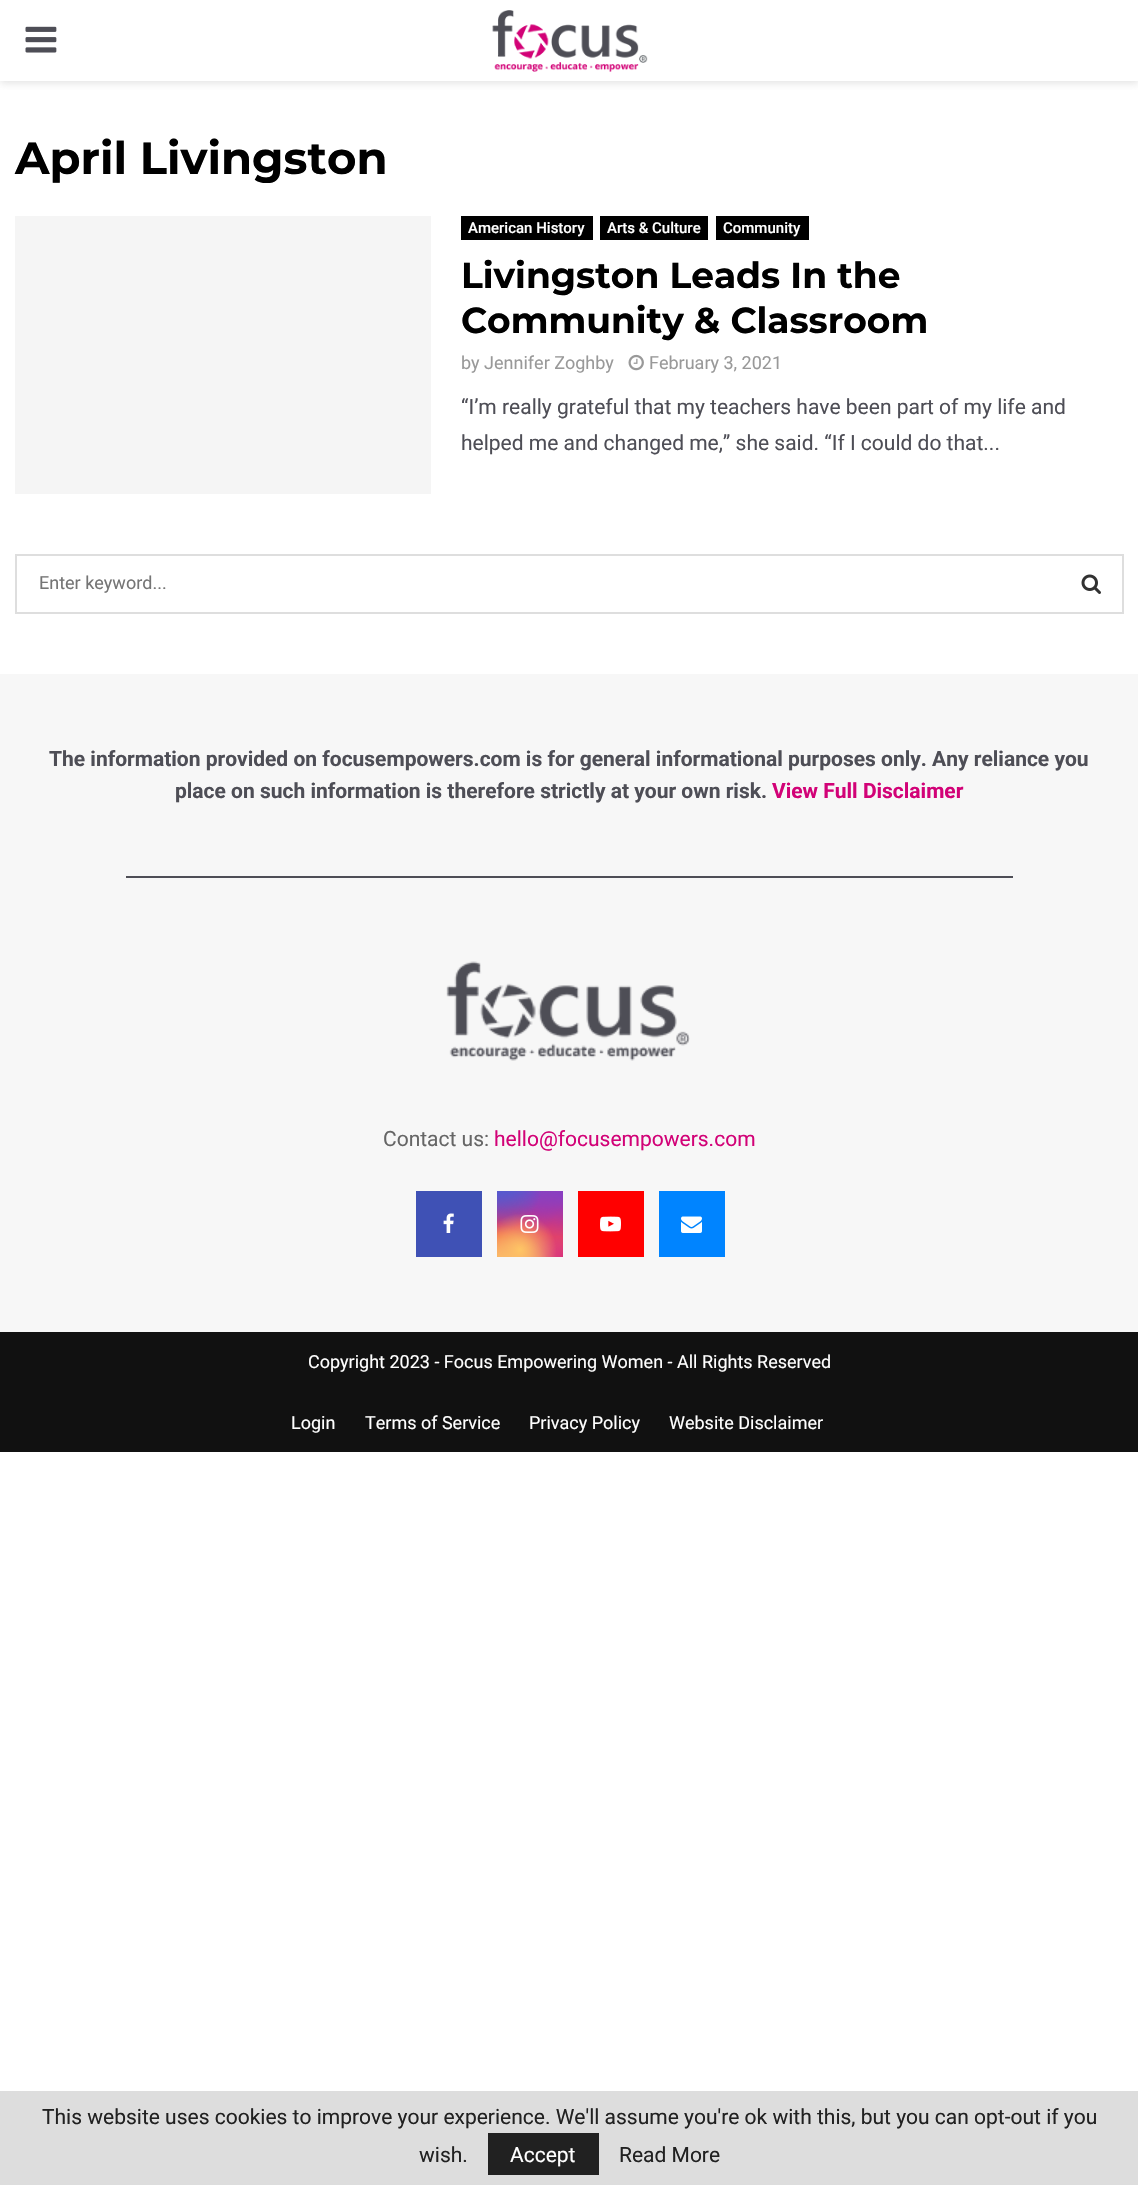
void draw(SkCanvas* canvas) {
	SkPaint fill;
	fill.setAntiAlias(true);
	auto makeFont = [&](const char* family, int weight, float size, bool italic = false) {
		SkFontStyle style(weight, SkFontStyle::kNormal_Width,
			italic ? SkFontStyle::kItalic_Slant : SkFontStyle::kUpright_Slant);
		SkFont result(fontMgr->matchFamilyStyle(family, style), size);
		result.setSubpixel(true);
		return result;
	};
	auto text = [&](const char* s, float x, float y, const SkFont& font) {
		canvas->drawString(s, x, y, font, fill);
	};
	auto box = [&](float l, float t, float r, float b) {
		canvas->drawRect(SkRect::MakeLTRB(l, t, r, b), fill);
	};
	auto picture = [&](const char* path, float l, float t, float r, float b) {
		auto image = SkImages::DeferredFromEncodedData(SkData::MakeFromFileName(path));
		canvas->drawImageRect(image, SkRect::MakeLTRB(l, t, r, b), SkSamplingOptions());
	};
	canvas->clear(0xFFFFFFFF);
	canvas->save();
	canvas->clipRect(SkRect::MakeLTRB(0, 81, 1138, 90));
	fill.setColor(0x75BEBEBE);
	fill.setMaskFilter(SkMaskFilter::MakeBlur(kNormal_SkBlurStyle, 4));
	canvas->drawRect(SkRect::MakeLTRB(0, 2, 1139, 83), fill);
	fill.setMaskFilter(nullptr);
	canvas->restore();
	picture("image0.png", 25, 26, 57, 53);
	picture("image1.png", 492, 10, 648, 72);
	fill.setColor(0xFFF5F5F5);
	box(15, 216, 431, 494);
	fill.setColor(0xFF000000);
	box(461, 216, 593, 240);
	box(600, 216, 708, 240);
	box(716, 216, 809, 240);
	picture("image2.png", 628, 354, 644, 371);
	fill.setStyle(SkPaint::kStroke_Style);
	fill.setStrokeWidth(2);
	fill.setColor(0xFFDEDEDE);
	canvas->drawRect(SkRect::MakeLTRB(16, 555, 1123, 613), fill);
	picture("image3.png", 1081, 574, 1101, 594);
	fill.setStyle(SkPaint::kFill_Style);
	fill.setColor(0xFFF7F7F7);
	box(0, 674, 1138, 1332);
	fill.setColor(0xFF4E4E56);
	box(126, 876, 1013, 878);
	picture("image4.png", 446, 961, 690, 1061);
	fill.setColor(0xFF3F51B5);
	box(416, 1191, 482, 1257);
	picture("image5.png", 443, 1213, 454, 1233);
	{
		const SkColor colors[] = {0xFF6559CA, 0xFFBC318F, 0xFFE33F5F, 0xFFF77638, 0xFFFEC66D};
		const float stops[] = {0, 0.3f, 0.5f, 0.7f, 1};
		const SkPoint ends[] = {{530, 1191}, {530, 1257}};
		fill.setShader(SkGradientShader::MakeLinear(ends, colors, stops, 5, SkTileMode::kClamp));
		fill.setAlpha(255);
	}
	box(497, 1191, 563, 1257);
	{
		const SkColor colors[] = {0xFFD9317A, 0x00D9317A};
		const float stops[] = {0, 1};
		fill.setShader(SkGradientShader::MakeRadial({563, 1257}, 93, colors, stops, 2, SkTileMode::kClamp));
		fill.setAlpha(255);
	}
	box(497, 1191, 563, 1257);
	{
		const SkColor colors[] = {0xFF893DC2, 0x00893DC2};
		const float stops[] = {0, 0.5f};
		SkMatrix m = SkMatrix::Translate(536, 1178).preScale(56, 112);
		fill.setShader(SkGradientShader::MakeRadial({0, 0}, 1, colors, stops, 2, SkTileMode::kClamp, 0, &m));
		fill.setAlpha(255);
	}
	box(512, 1191, 560, 1233);
	{
		const SkColor colors[] = {0xFF893DC2, 0x00893DC2};
		const float stops[] = {0, 0.5f};
		fill.setShader(SkGradientShader::MakeRadial({563, 1191}, 93, colors, stops, 2, SkTileMode::kClamp));
		fill.setAlpha(255);
	}
	box(522, 1191, 563, 1236);
	{
		const SkColor colors[] = {0xFF5258CF, 0x005258CF};
		const float stops[] = {0, 0.5f};
		SkMatrix m = SkMatrix::Translate(510, 1158).preScale(75, 140);
		fill.setShader(SkGradientShader::MakeRadial({0, 0}, 1, colors, stops, 2, SkTileMode::kClamp, 0, &m));
		fill.setAlpha(255);
	}
	box(497, 1191, 541, 1226);
	{
		const SkColor colors[] = {0xFF5258CF, 0x005258CF};
		const float stops[] = {0, 0.5f};
		SkMatrix m = SkMatrix::Translate(497, 1175).preScale(93, 117);
		fill.setShader(SkGradientShader::MakeRadial({0, 0}, 1, colors, stops, 2, SkTileMode::kClamp, 0, &m));
		fill.setAlpha(255);
	}
	box(497, 1191, 539, 1232);
	{
		const SkColor colors[] = {0xFFFEC564, 0x00FEC564};
		const float stops[] = {0, 0.5f};
		fill.setShader(SkGradientShader::MakeRadial({497, 1283}, 114, colors, stops, 2, SkTileMode::kClamp));
		fill.setAlpha(255);
	}
	box(497, 1227, 546, 1257);
	{
		const SkColor colors[] = {0xFFFEC564, 0x00FEC564};
		const float stops[] = {0, 0.5f};
		fill.setShader(SkGradientShader::MakeRadial({520, 1250}, 73, colors, stops, 2, SkTileMode::kClamp));
		fill.setAlpha(255);
	}
	box(497, 1214, 556, 1257);
	picture("image6.png", 520, 1215, 539, 1233);
	fill.setShader(nullptr);
	fill.setColor(0xFFFF0000);
	box(578, 1191, 644, 1257);
	picture("image7.png", 600, 1216, 621, 1232);
	fill.setColor(0xFF0084FF);
	box(659, 1191, 725, 1257);
	picture("image8.png", 681, 1216, 702, 1233);
	fill.setColor(0xFF111111);
	box(0, 1332, 1138, 1452);
	fill.setColor(0xFFDDDDDD);
	box(0, 2091, 1138, 2185);
	fill.setColor(0xFF212121);
	box(488, 2133, 599, 2175);
	auto font1 = makeFont("Montserrat", 700, 45);
	fill.setColor(0xFF000000);
	text("April Livingston", 15, 174, font1);
	auto font2 = makeFont("Roboto", 500, 15);
	fill.setColor(0xFFFFFFFF);
	text("American History", 468, 233, font2);
	text("Arts & Culture", 607, 233, font2);
	text("Community", 723, 233, font2);
	auto font3 = makeFont("Montserrat", 700, 36);
	fill.setColor(0xFF000000);
	text("Livingston Leads In the", 461, 288, font3);
	text("Community & Classroom", 461, 333, font3);
	auto font4 = makeFont("Roboto", 400, 18);
	fill.setColor(0xFF999999);
	text("by Jennifer Zoghby", 461, 369, font4);
	text("February 3, 2021", 649, 369, font4);
	auto font5 = makeFont("Roboto", 400, 21);
	fill.setColor(0xFF4E4E56);
	text("“I’m really grateful that my teachers have been part of my life and", 461, 414, font5);
	text("helped me and changed me,” she said. “If I could do that...", 461, 450, font5);
	fill.setColor(0xFF757575);
	text("Enter keyword...", 39, 589, font4);
	auto font6 = makeFont("Roboto", 700, 21);
	fill.setColor(0xFF4E4E56);
	text("The information provided on focusempowers.com is for general informational purposes only. Any reliance you", 49, 766, font6);
	text("place on such information is therefore strictly at your own risk.", 175, 798, font6);
	fill.setColor(0xFFD20277);
	text("View Full Disclaimer", 772, 798, font6);
	fill.setColor(0xFF666666);
	text("Contact us:", 383, 1146, font5);
	fill.setColor(0xFFD20277);
	text("hello@focusempowers.com", 494, 1146, font5);
	fill.setColor(0xFFFFFFFF);
	text("Copyright 2023 - Focus Empowering Women - All Rights Reserved", 308, 1368, font4);
	text("Login", 291, 1429, font4);
	text("Terms of Service", 365, 1429, font4);
	text("Privacy Policy", 529, 1429, font4);
	text("Website Disclaimer", 669, 1429, font4);
	fill.setColor(0xFF212121);
	text("This website uses cookies to improve your experience. We'll assume you're ok with this, but you can opt-out if you", 42, 2124, font5);
	text("wish.", 419, 2162, font5);
	fill.setColor(0xFFFFFFFF);
	text("Accept", 510, 2162, font5);
	fill.setColor(0xFF212121);
	text("Read More", 619, 2162, font5);
}
